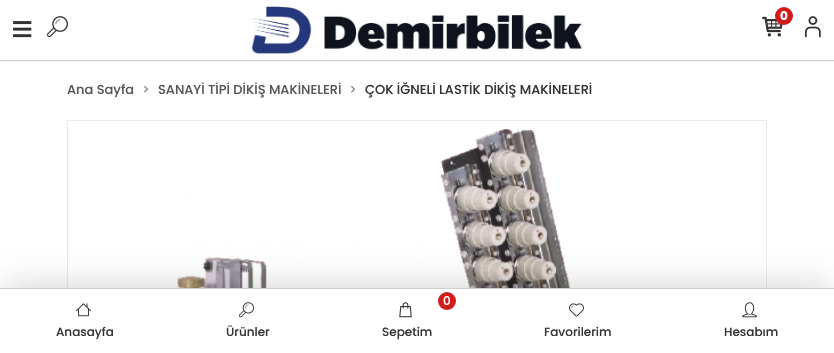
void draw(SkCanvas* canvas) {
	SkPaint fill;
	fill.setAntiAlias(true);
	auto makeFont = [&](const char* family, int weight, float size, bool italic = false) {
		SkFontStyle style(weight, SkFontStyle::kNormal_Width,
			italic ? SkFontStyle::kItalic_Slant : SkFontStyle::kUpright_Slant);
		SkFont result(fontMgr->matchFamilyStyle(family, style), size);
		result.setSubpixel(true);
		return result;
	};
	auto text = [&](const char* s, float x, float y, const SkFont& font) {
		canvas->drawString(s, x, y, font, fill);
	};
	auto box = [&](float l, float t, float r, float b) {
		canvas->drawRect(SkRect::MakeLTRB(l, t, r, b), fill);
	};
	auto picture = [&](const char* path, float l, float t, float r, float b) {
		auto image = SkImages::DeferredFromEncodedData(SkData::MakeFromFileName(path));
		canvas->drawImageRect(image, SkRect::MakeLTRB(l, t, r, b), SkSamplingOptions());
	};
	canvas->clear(0xFFFFFFFF);
	canvas->save();
	canvas->clipRect(SkRect::MakeLTRB(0, 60, 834, 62));
	fill.setColor(0x33000000);
	fill.setMaskFilter(SkMaskFilter::MakeBlur(kNormal_SkBlurStyle, 0.5f));
	canvas->drawRect(SkRect::MakeLTRB(0, 1, 834, 61), fill);
	fill.setMaskFilter(nullptr);
	canvas->restore();
	picture("image0.png", 13, 21, 32, 38);
	picture("image1.png", 47, 16, 68, 38);
	picture("image2.png", 251, 6, 583, 54);
	picture("image3.png", 762, 16, 783, 37);
	fill.setColor(0xFFD21C1C);
	canvas->drawCircle(784, 16, 9, fill);
	picture("image4.png", 805, 16, 821, 38);
	fill.setStyle(SkPaint::kStroke_Style);
	fill.setStrokeWidth(1);
	fill.setColor(0xFFEBEBEB);
	canvas->drawRect(SkRect::MakeLTRB(67.5f, 120.5f, 766.5f, 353.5f), fill);
	picture("image5.png", 177, 129, 571, 288);
	fill.setStyle(SkPaint::kFill_Style);
	fill.setColor(0x26000000);
	fill.setMaskFilter(SkMaskFilter::MakeBlur(kNormal_SkBlurStyle, 15));
	canvas->drawRect(SkRect::MakeLTRB(5, 283, 829, 338), fill);
	fill.setMaskFilter(nullptr);
	fill.setColor(0xFFFFFFFF);
	box(0, 289, 834, 353);
	fill.setColor(0xFFCFCFCF);
	box(0, 288, 834, 289);
	picture("image6.png", 76, 303, 91, 317);
	picture("image7.png", 239, 302, 254, 318);
	fill.setColor(0xFFD21C1C);
	canvas->drawCircle(447, 301, 9, fill);
	picture("image8.png", 399, 302, 412, 318);
	picture("image9.png", 569, 303, 584, 317);
	picture("image10.png", 742, 302, 757, 318);
	auto font1 = makeFont("Poppins", 700, 12);
	fill.setColor(0xFFFFFFFF);
	text("0", 780, 20, font1);
	auto font2 = makeFont("Poppins", 500, 13);
	fill.setColor(0xFF555555);
	text("Ana Sayfa", 67, 94, font2);
	fill.setColor(0xFF8E8E8E);
	text(">", 142, 94, font2);
	fill.setColor(0xFF555555);
	text("SANAYİ TİPİ DİKİŞ MAKİNELERİ", 158, 94, font2);
	fill.setColor(0xFF8E8E8E);
	text(">", 349, 94, font2);
	fill.setColor(0xFF333333);
	text("ÇOK İĞNELİ LASTİK DİKİŞ MAKİNELERİ", 365, 94, font2);
	auto font3 = makeFont("Poppins", 500, 12);
	text("Anasayfa", 56, 336, font3);
	text("Ürünler", 226, 336, font3);
	fill.setColor(0xFFFFFFFF);
	text("0", 443, 305, font3);
	fill.setColor(0xFF333333);
	text("Sepetim", 382, 336, font3);
	text("Favorilerim", 544, 336, font3);
	text("Hesabım", 724, 336, font3);
}
